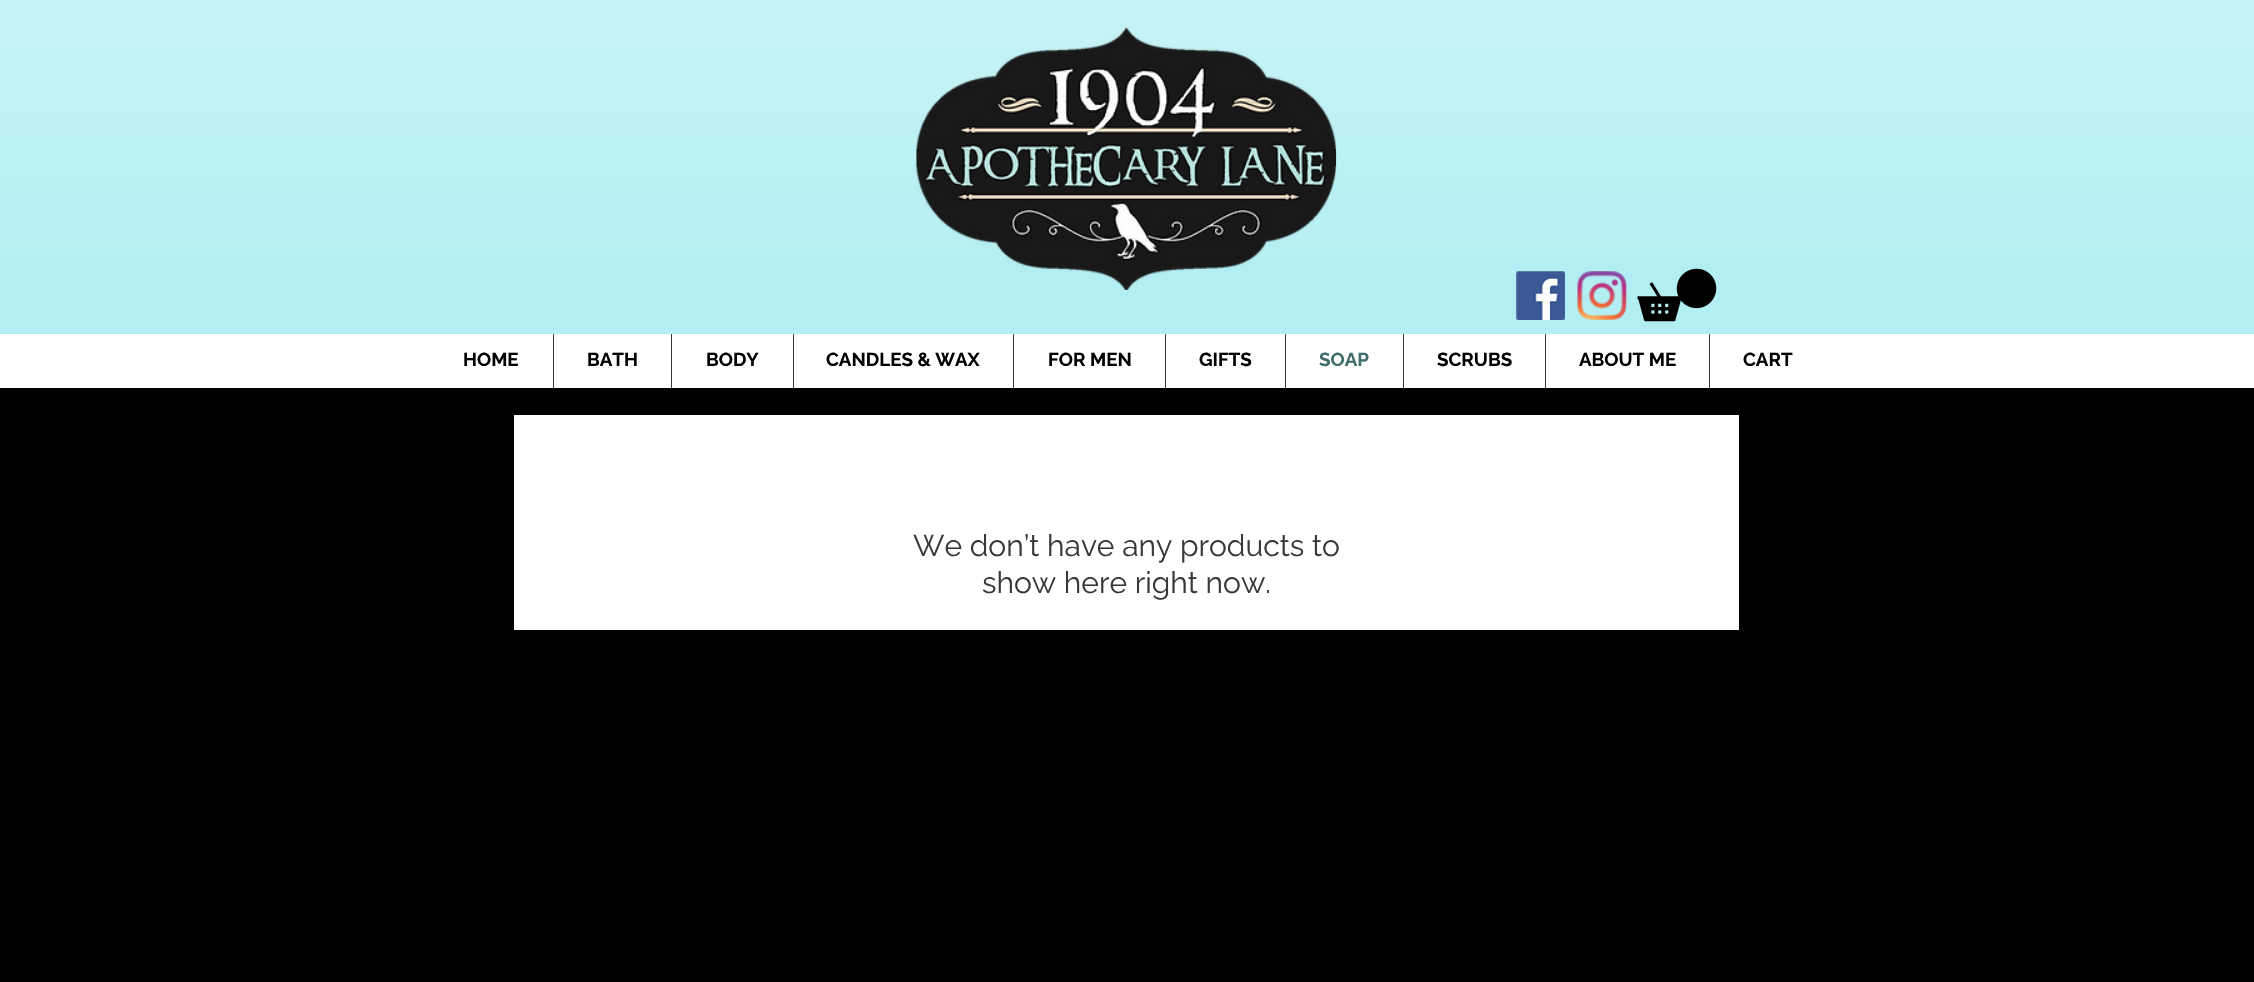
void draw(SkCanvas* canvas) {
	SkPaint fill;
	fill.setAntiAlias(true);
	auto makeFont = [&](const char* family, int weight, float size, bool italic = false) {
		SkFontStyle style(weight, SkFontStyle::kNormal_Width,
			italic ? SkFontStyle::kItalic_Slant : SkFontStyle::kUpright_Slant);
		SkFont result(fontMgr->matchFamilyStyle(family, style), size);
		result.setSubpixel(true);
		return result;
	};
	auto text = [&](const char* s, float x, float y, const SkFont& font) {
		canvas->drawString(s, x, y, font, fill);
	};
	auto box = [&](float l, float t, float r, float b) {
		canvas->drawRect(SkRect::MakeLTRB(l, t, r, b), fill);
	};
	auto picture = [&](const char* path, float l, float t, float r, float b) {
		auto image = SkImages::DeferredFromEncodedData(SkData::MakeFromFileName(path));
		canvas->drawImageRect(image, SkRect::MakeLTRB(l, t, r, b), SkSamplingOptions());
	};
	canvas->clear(0xFF000000);
	fill.setColor(0xFFB3EFF2);
	box(0, 0, 2254, 334);
	picture("image0.png", 0, 0, 2254, 262);
	picture("image1.png", 916, 27, 1337, 290);
	picture("image2.png", 1516, 271, 1565, 320);
	picture("image3.png", 1577, 271, 1627, 320);
	picture("image4.png", 1637, 268, 1717, 322);
	fill.setColor(0xFFFFFFFF);
	box(0, 334, 2254, 388);
	fill.setColor(0xFF383838);
	box(553, 334, 554, 388);
	box(671, 334, 672, 388);
	box(793, 334, 794, 388);
	box(1013, 334, 1014, 388);
	box(1165, 334, 1166, 388);
	box(1285, 334, 1286, 388);
	box(1403, 334, 1404, 388);
	box(1545, 334, 1546, 388);
	box(1709, 334, 1710, 388);
	fill.setColor(0xFFFFFFFF);
	box(514, 415, 1739, 630);
	auto font1 = makeFont("Raleway", 700, 18.75f);
	fill.setColor(0xFF000000);
	text("HOME", 463, 366, font1);
	text("BATH", 587, 366, font1);
	text("BODY", 706, 366, font1);
	text("CANDLES & WAX", 826, 366, font1);
	text("FOR MEN", 1048, 366, font1);
	text("GIFTS", 1199, 366, font1);
	fill.setColor(0xFF3E6D6C);
	text("SOAP", 1319, 366, font1);
	fill.setColor(0xFF000000);
	text("SCRUBS", 1437, 366, font1);
	text("ABOUT ME", 1579, 366, font1);
	text("CART", 1743, 366, font1);
	auto font2 = makeFont("Raleway", 400, 30);
	fill.setColor(0xFF383838);
	text("We don’t have any products to", 913, 556, font2);
	text("show here right now.", 982, 593, font2);
}
